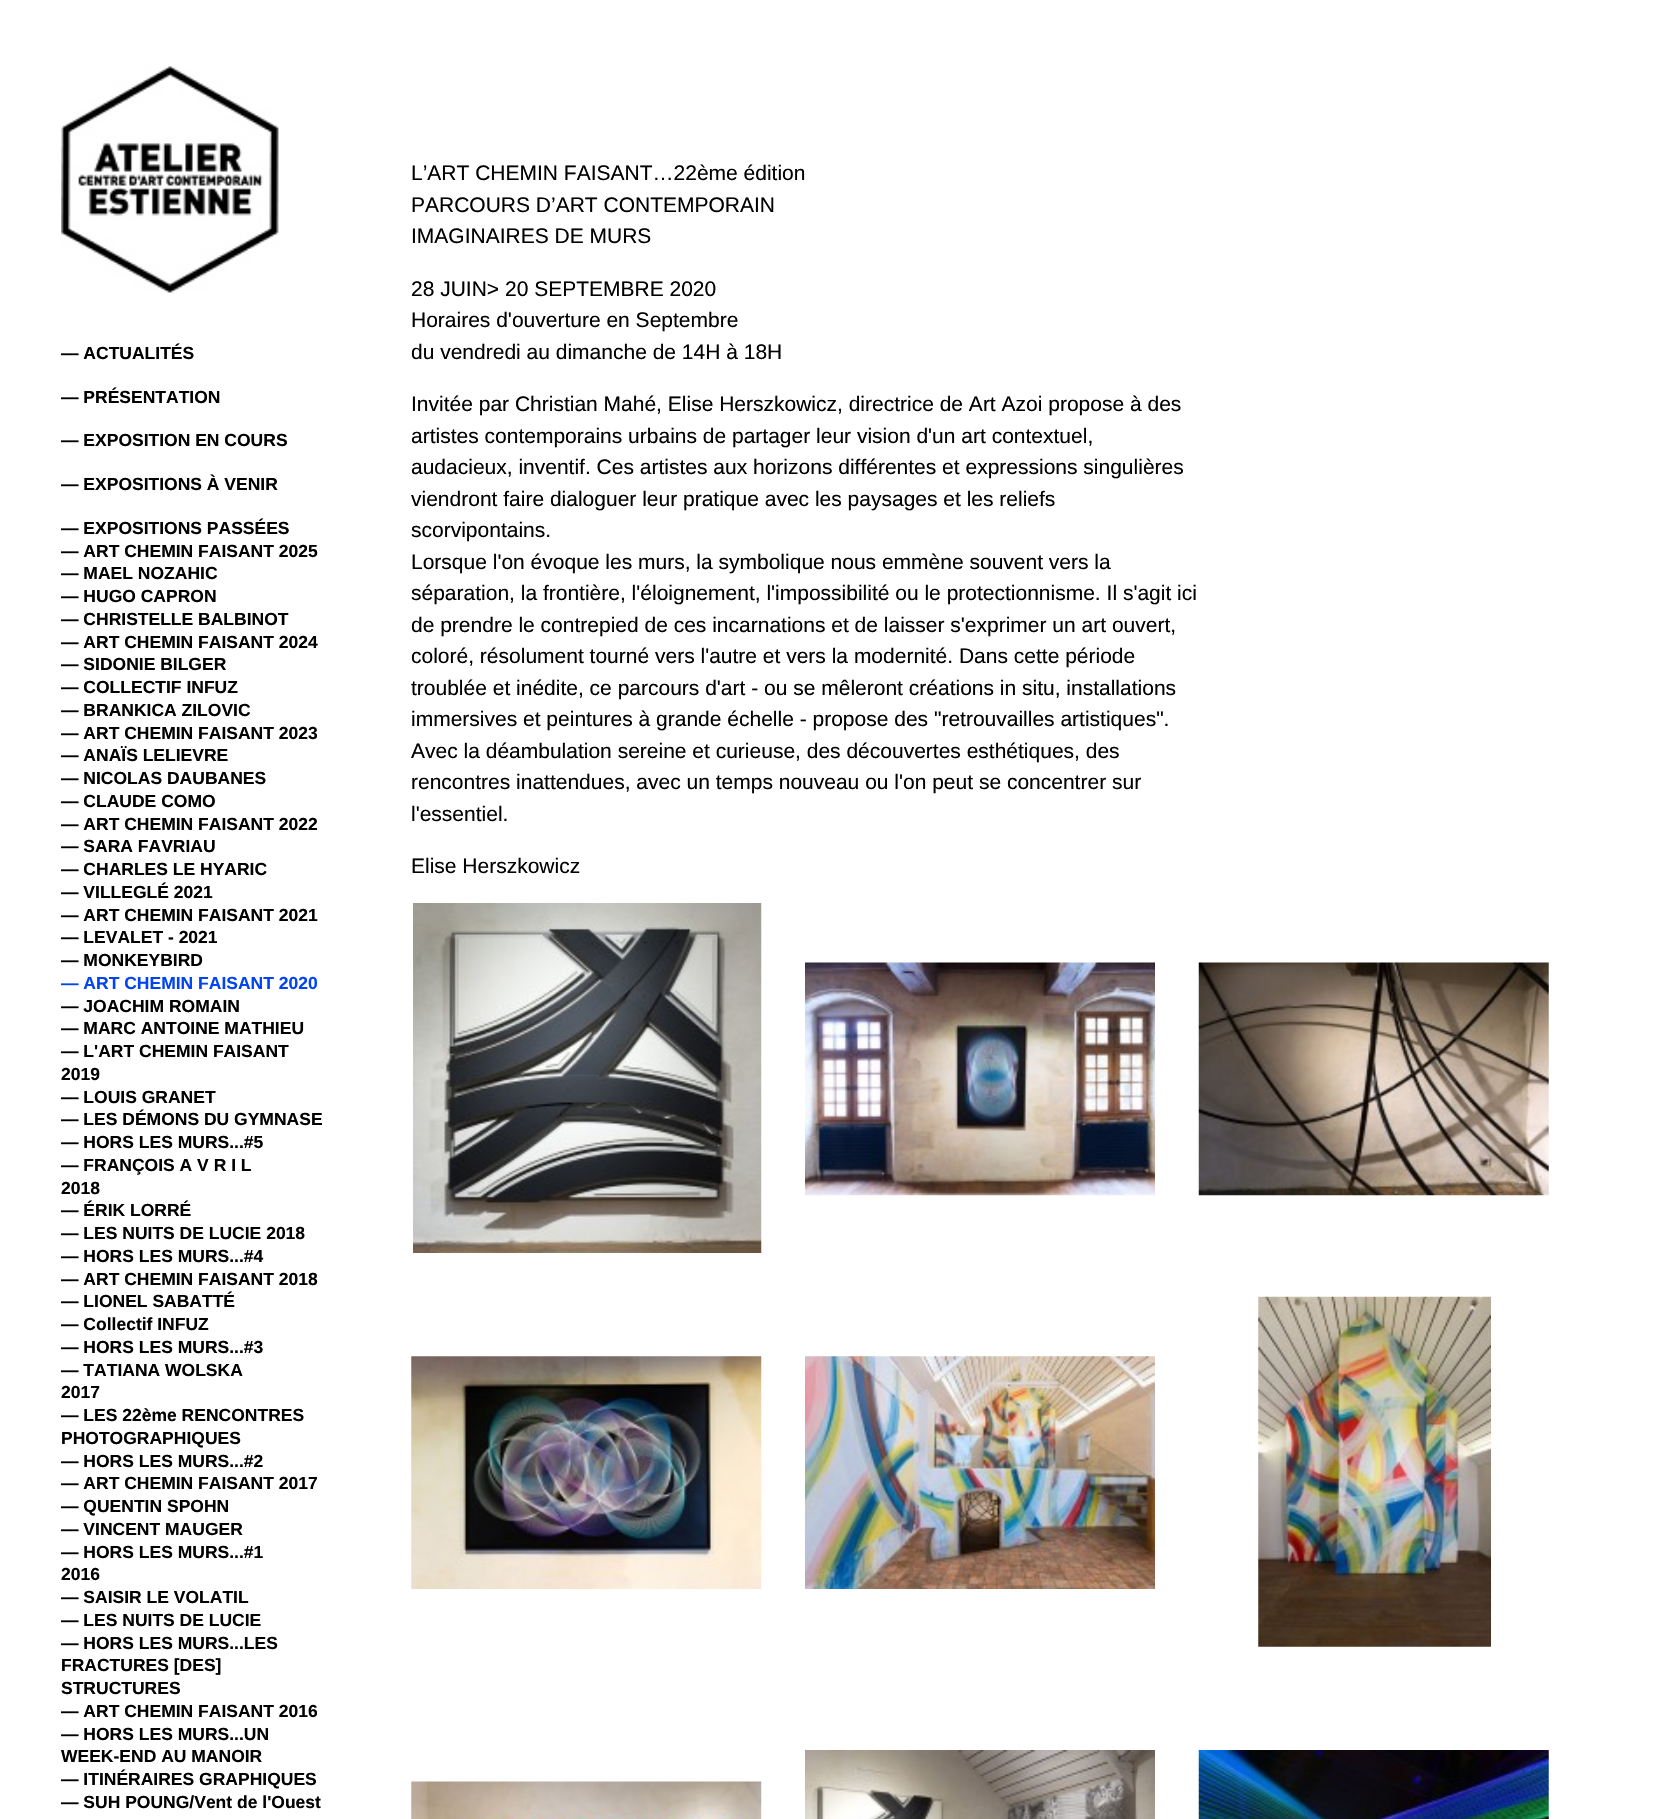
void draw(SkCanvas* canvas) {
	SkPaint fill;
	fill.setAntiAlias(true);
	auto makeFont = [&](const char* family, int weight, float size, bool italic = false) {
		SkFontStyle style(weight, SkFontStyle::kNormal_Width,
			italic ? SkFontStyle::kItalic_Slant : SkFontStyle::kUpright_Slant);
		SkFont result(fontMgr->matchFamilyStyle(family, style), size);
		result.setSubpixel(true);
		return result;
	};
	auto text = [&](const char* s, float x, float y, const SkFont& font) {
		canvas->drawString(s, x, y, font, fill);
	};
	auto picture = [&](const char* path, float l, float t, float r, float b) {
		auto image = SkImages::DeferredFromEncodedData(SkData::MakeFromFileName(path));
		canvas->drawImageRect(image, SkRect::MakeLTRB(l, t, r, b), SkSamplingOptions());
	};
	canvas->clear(0xFFFFFFFF);
	picture("image0.png", 61, 66, 279, 293);
	picture("image1.png", 413, 903, 762, 1253);
	picture("image2.png", 805, 962, 1155, 1196);
	picture("image3.png", 1198, 962, 1549, 1196);
	picture("image4.png", 411, 1356, 762, 1589);
	picture("image5.png", 805, 1356, 1155, 1589);
	picture("image6.png", 1258, 1296, 1491, 1647);
	picture("image7.png", 411, 1781, 762, 1819);
	picture("image8.png", 805, 1750, 1155, 1819);
	picture("image9.png", 1198, 1750, 1549, 1819);
	auto font1 = makeFont("Liberation Sans", 700, 17.5f);
	fill.setColor(0xFF000000);
	text("— ACTUALITÉS", 61, 359, font1);
	text("— PRÉSENTATION", 61, 403, font1);
	text("— EXPOSITION EN COURS", 61, 446, font1);
	text("— EXPOSITIONS À VENIR", 61, 490, font1);
	text("— EXPOSITIONS PASSÉES", 61, 534, font1);
	text("— ART CHEMIN FAISANT 2025", 61, 557, font1);
	text("— MAEL NOZAHIC", 61, 579, font1);
	text("— HUGO CAPRON", 61, 602, font1);
	text("— CHRISTELLE BALBINOT", 61, 625, font1);
	text("— ART CHEMIN FAISANT 2024", 61, 648, font1);
	text("— SIDONIE BILGER", 61, 670, font1);
	text("— COLLECTIF INFUZ", 61, 693, font1);
	text("— BRANKICA ZILOVIC", 61, 716, font1);
	text("— ART CHEMIN FAISANT 2023", 61, 739, font1);
	text("— ANAÏS LELIEVRE", 61, 761, font1);
	text("— NICOLAS DAUBANES", 61, 784, font1);
	text("— CLAUDE COMO", 61, 807, font1);
	text("— ART CHEMIN FAISANT 2022", 61, 830, font1);
	text("— SARA FAVRIAU", 61, 852, font1);
	text("— CHARLES LE HYARIC", 61, 875, font1);
	text("— VILLEGLÉ 2021", 61, 898, font1);
	text("— ART CHEMIN FAISANT 2021", 61, 921, font1);
	text("— LEVALET - 2021", 61, 943, font1);
	text("— MONKEYBIRD", 61, 966, font1);
	fill.setColor(0xFF0044F3);
	text("— ART CHEMIN FAISANT 2020", 61, 989, font1);
	fill.setColor(0xFF000000);
	text("— JOACHIM ROMAIN", 61, 1012, font1);
	text("— MARC ANTOINE MATHIEU", 61, 1034, font1);
	text("— L'ART CHEMIN FAISANT", 61, 1057, font1);
	text("2019", 61, 1080, font1);
	text("— LOUIS GRANET", 61, 1103, font1);
	text("— LES DÉMONS DU GYMNASE", 61, 1125, font1);
	text("— HORS LES MURS...#5", 61, 1148, font1);
	text("— FRANÇOIS A V R I L", 61, 1171, font1);
	text("2018", 61, 1194, font1);
	text("— ÉRIK LORRÉ", 61, 1216, font1);
	text("— LES NUITS DE LUCIE 2018", 61, 1239, font1);
	text("— HORS LES MURS...#4", 61, 1262, font1);
	text("— ART CHEMIN FAISANT 2018", 61, 1285, font1);
	text("— LIONEL SABATTÉ", 61, 1307, font1);
	text("— Collectif INFUZ", 61, 1330, font1);
	text("— HORS LES MURS...#3", 61, 1353, font1);
	text("— TATIANA WOLSKA", 61, 1376, font1);
	text("2017", 61, 1398, font1);
	text("— LES 22ème RENCONTRES", 61, 1421, font1);
	text("PHOTOGRAPHIQUES", 61, 1444, font1);
	text("— HORS LES MURS...#2", 61, 1467, font1);
	text("— ART CHEMIN FAISANT 2017", 61, 1489, font1);
	text("— QUENTIN SPOHN", 61, 1512, font1);
	text("— VINCENT MAUGER", 61, 1535, font1);
	text("— HORS LES MURS...#1", 61, 1558, font1);
	text("2016", 61, 1580, font1);
	text("— SAISIR LE VOLATIL", 61, 1603, font1);
	text("— LES NUITS DE LUCIE", 61, 1626, font1);
	text("— HORS LES MURS...LES", 61, 1649, font1);
	text("FRACTURES [DES]", 61, 1671, font1);
	text("STRUCTURES", 61, 1694, font1);
	text("— ART CHEMIN FAISANT 2016", 61, 1717, font1);
	text("— HORS LES MURS...UN", 61, 1740, font1);
	text("WEEK-END AU MANOIR", 61, 1762, font1);
	text("— ITINÉRAIRES GRAPHIQUES", 61, 1785, font1);
	text("— SUH POUNG/Vent de l'Ouest", 61, 1808, font1);
	auto font2 = makeFont("Liberation Sans", 400, 21);
	text("L’ART CHEMIN FAISANT…22ème édition", 411, 180, font2);
	text("PARCOURS D’ART CONTEMPORAIN", 411, 212, font2);
	text("IMAGINAIRES DE MURS", 411, 243, font2);
	text("28 JUIN> 20 SEPTEMBRE 2020", 411, 296, font2);
	text("Horaires d'ouverture en Septembre", 411, 327, font2);
	text("du vendredi au dimanche de 14H à 18H", 411, 359, font2);
	text("Invitée par Christian Mahé, Elise Herszkowicz, directrice de Art Azoi propose à des", 411, 411, font2);
	text("artistes contemporains urbains de partager leur vision d'un art contextuel,", 411, 443, font2);
	text("audacieux, inventif. Ces artistes aux horizons différentes et expressions singulières", 411, 474, font2);
	text("viendront faire dialoguer leur pratique avec les paysages et les reliefs", 411, 506, font2);
	text("scorvipontains.", 411, 537, font2);
	text("Lorsque l'on évoque les murs, la symbolique nous emmène souvent vers la", 411, 569, font2);
	text("séparation, la frontière, l'éloignement, l'impossibilité ou le protectionnisme. Il s'agit ici", 411, 600, font2);
	text("de prendre le contrepied de ces incarnations et de laisser s'exprimer un art ouvert,", 411, 632, font2);
	text("coloré, résolument tourné vers l'autre et vers la modernité. Dans cette période", 411, 663, font2);
	text("troublée et inédite, ce parcours d'art - ou se mêleront créations in situ, installations", 411, 695, font2);
	text("immersives et peintures à grande échelle - propose des \"retrouvailles artistiques\".", 411, 726, font2);
	text("Avec la déambulation sereine et curieuse, des découvertes esthétiques, des", 411, 758, font2);
	text("rencontres inattendues, avec un temps nouveau ou l'on peut se concentrer sur", 411, 789, font2);
	text("l'essentiel.", 411, 821, font2);
	text("Elise Herszkowicz", 411, 873, font2);
}
